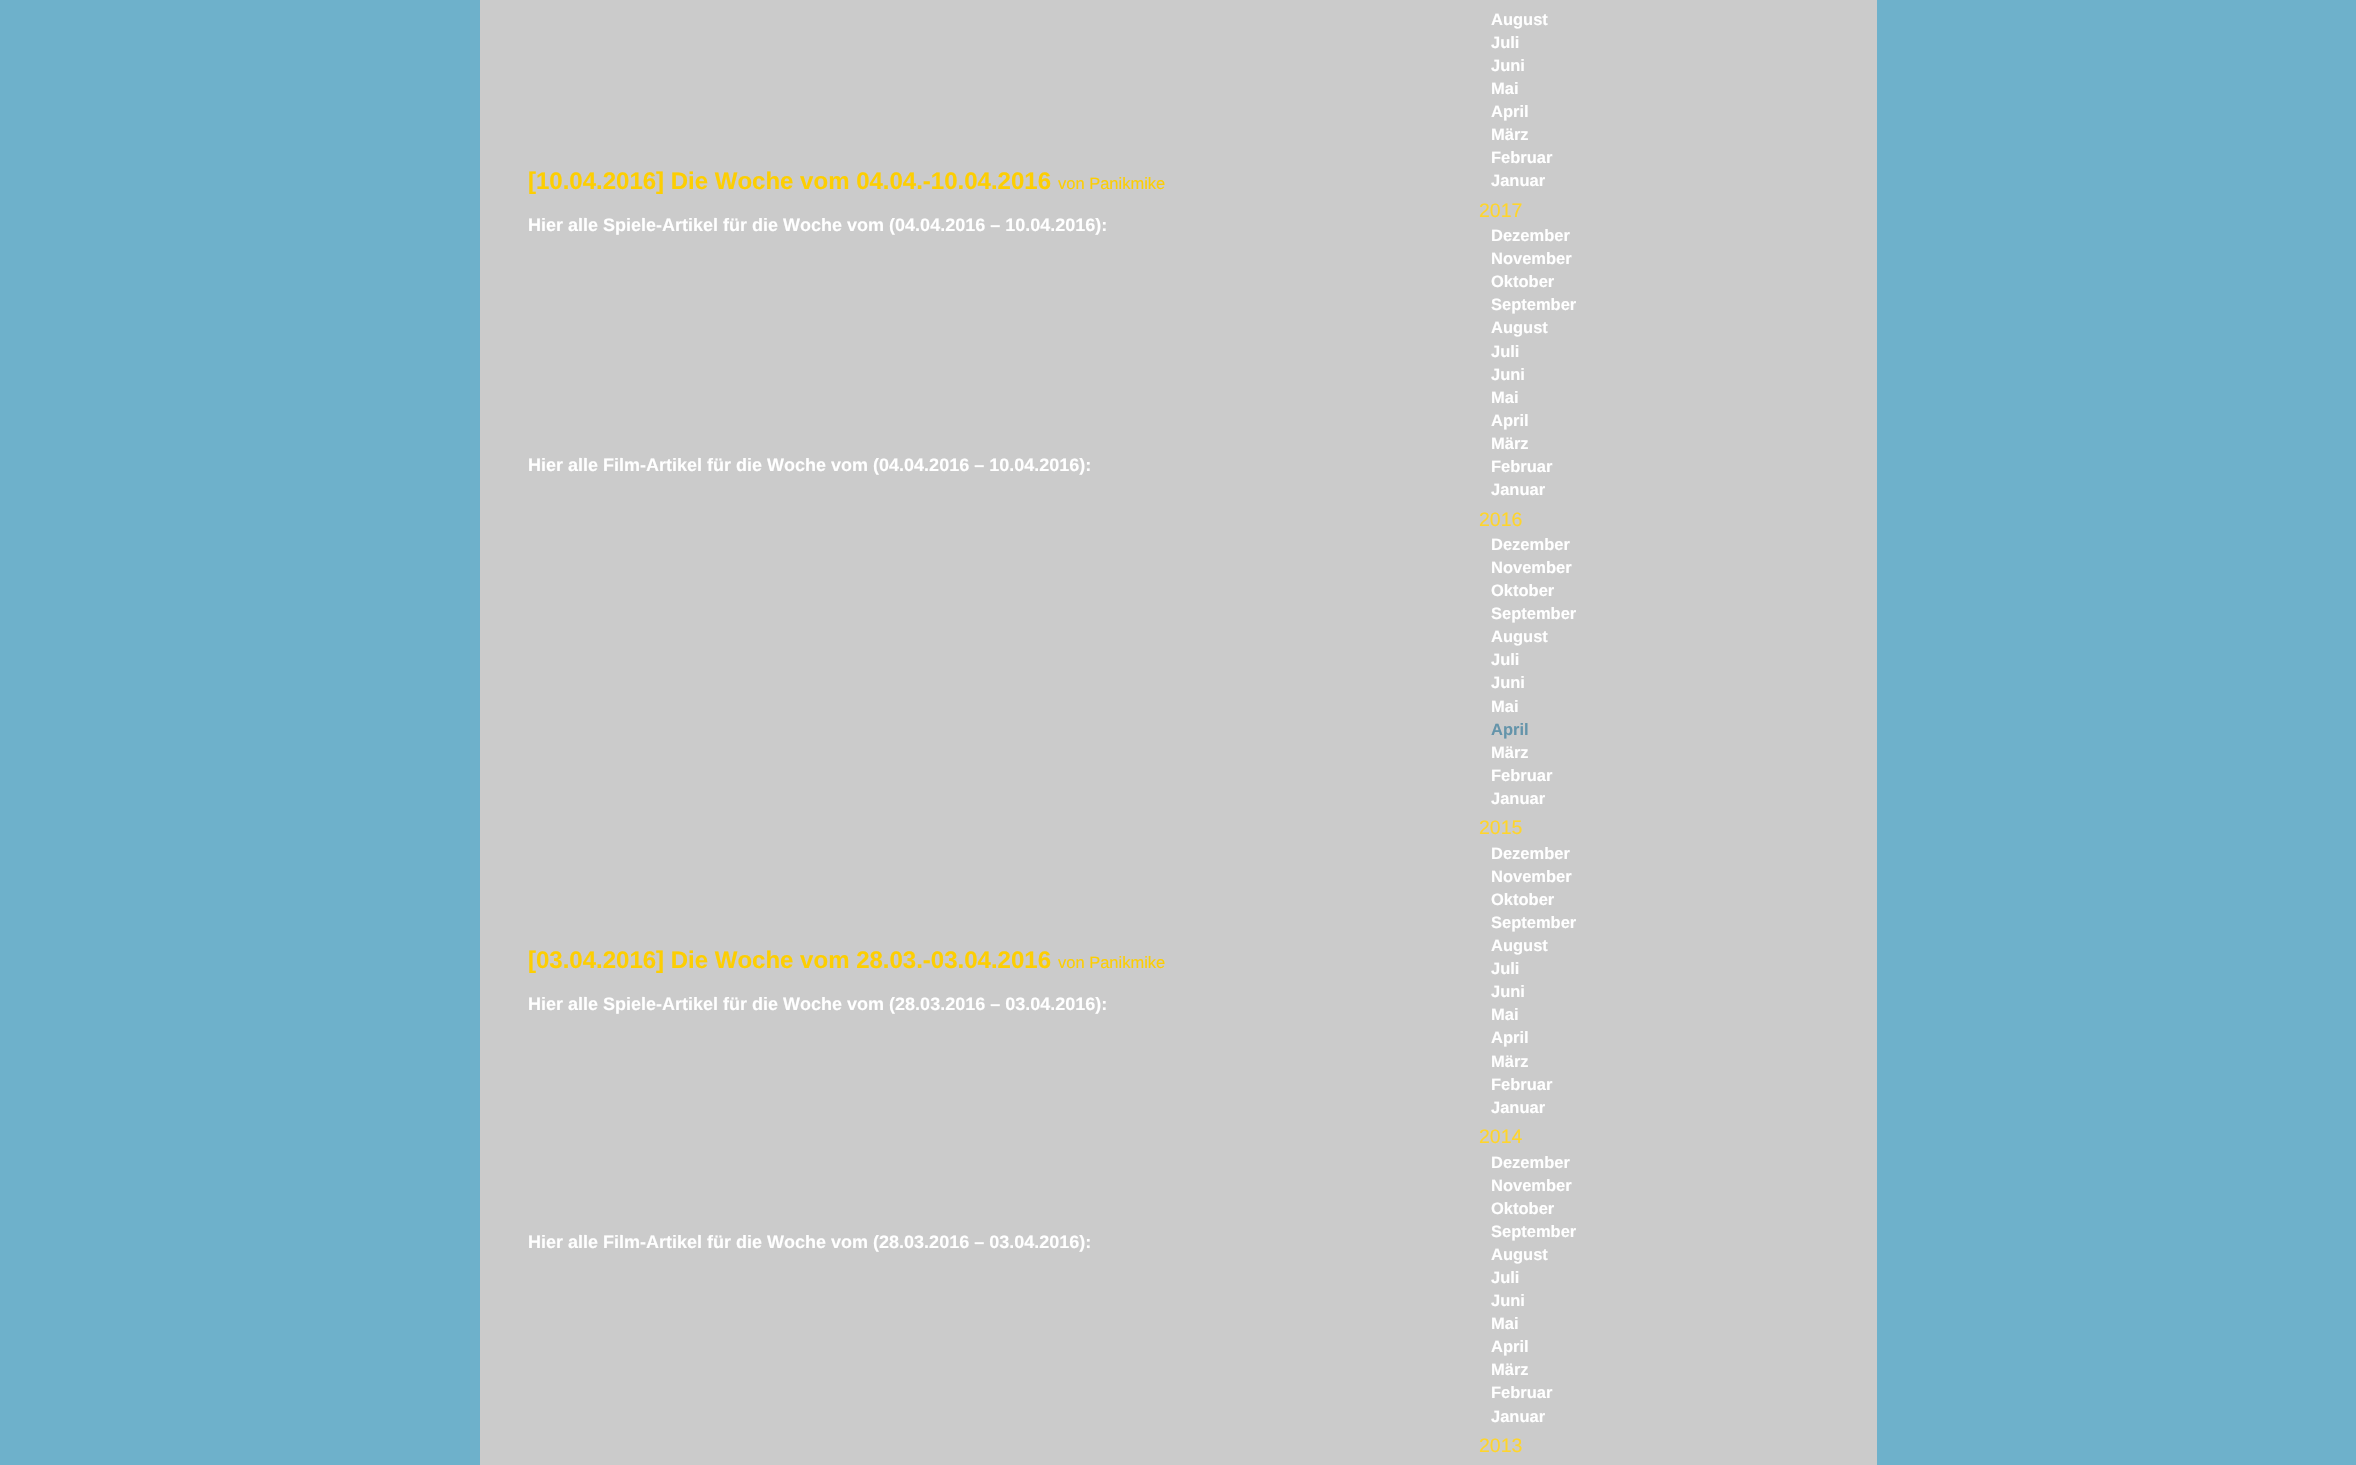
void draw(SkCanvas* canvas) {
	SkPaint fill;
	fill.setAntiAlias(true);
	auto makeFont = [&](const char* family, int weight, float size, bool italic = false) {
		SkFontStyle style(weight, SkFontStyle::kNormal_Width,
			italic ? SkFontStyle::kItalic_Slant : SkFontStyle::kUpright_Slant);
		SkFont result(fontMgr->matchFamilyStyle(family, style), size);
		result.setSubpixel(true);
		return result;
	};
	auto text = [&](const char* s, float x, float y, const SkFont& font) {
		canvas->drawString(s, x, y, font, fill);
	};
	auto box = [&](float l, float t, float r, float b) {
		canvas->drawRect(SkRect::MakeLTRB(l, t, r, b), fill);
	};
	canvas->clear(0xFF6EB1CB);
	fill.setColor(0xFFCBCBCB);
	box(480, 0, 1877, 1465);
	auto font1 = makeFont("Liberation Sans", 700, 24);
	fill.setColor(0xFFFDCE02);
	text("[10.04.2016] Die Woche vom 04.04.-10.04.2016", 528, 189, font1);
	auto font2 = makeFont("Liberation Sans", 400, 16.5f);
	text("von Panikmike", 1058, 189, font2);
	auto font3 = makeFont("Liberation Sans", 700, 18);
	fill.setColor(0xFFFFFFFF);
	text("Hier alle Spiele-Artikel für die Woche vom (04.04.2016 – 10.04.2016):", 528, 231, font3);
	text("Hier alle Film-Artikel für die Woche vom (04.04.2016 – 10.04.2016):", 528, 471, font3);
	fill.setColor(0xFFFDCE02);
	text("[03.04.2016] Die Woche vom 28.03.-03.04.2016", 528, 968, font1);
	text("von Panikmike", 1058, 968, font2);
	fill.setColor(0xFFFFFFFF);
	text("Hier alle Spiele-Artikel für die Woche vom (28.03.2016 – 03.04.2016):", 528, 1010, font3);
	text("Hier alle Film-Artikel für die Woche vom (28.03.2016 – 03.04.2016):", 528, 1248, font3);
	auto font4 = makeFont("Liberation Sans", 700, 16.5f);
	text("August", 1491, 25, font4);
	text("Juli", 1491, 48, font4);
	text("Juni", 1491, 71, font4);
	text("Mai", 1491, 94, font4);
	text("April", 1491, 117, font4);
	text("März", 1491, 140, font4);
	text("Februar", 1491, 163, font4);
	text("Januar", 1491, 186, font4);
	auto font5 = makeFont("Liberation Sans", 400, 19.5f);
	fill.setColor(0xFFFFD52B);
	text("2017", 1479, 217, font5);
	fill.setColor(0xFFFFFFFF);
	text("Dezember", 1491, 241, font4);
	text("November", 1491, 264, font4);
	text("Oktober", 1491, 287, font4);
	text("September", 1491, 310, font4);
	text("August", 1491, 333, font4);
	text("Juli", 1491, 357, font4);
	text("Juni", 1491, 380, font4);
	text("Mai", 1491, 403, font4);
	text("April", 1491, 426, font4);
	text("März", 1491, 449, font4);
	text("Februar", 1491, 472, font4);
	text("Januar", 1491, 495, font4);
	fill.setColor(0xFFFFD52B);
	text("2016", 1479, 526, font5);
	fill.setColor(0xFFFFFFFF);
	text("Dezember", 1491, 550, font4);
	text("November", 1491, 573, font4);
	text("Oktober", 1491, 596, font4);
	text("September", 1491, 619, font4);
	text("August", 1491, 642, font4);
	text("Juli", 1491, 665, font4);
	text("Juni", 1491, 688, font4);
	text("Mai", 1491, 712, font4);
	fill.setColor(0xFF6494AA);
	text("April", 1491, 735, font4);
	fill.setColor(0xFFFFFFFF);
	text("März", 1491, 758, font4);
	text("Februar", 1491, 781, font4);
	text("Januar", 1491, 804, font4);
	fill.setColor(0xFFFFD52B);
	text("2015", 1479, 834, font5);
	fill.setColor(0xFFFFFFFF);
	text("Dezember", 1491, 859, font4);
	text("November", 1491, 882, font4);
	text("Oktober", 1491, 905, font4);
	text("September", 1491, 928, font4);
	text("August", 1491, 951, font4);
	text("Juli", 1491, 974, font4);
	text("Juni", 1491, 997, font4);
	text("Mai", 1491, 1020, font4);
	text("April", 1491, 1043, font4);
	text("März", 1491, 1067, font4);
	text("Februar", 1491, 1090, font4);
	text("Januar", 1491, 1113, font4);
	fill.setColor(0xFFFFD52B);
	text("2014", 1479, 1143, font5);
	fill.setColor(0xFFFFFFFF);
	text("Dezember", 1491, 1168, font4);
	text("November", 1491, 1191, font4);
	text("Oktober", 1491, 1214, font4);
	text("September", 1491, 1237, font4);
	text("August", 1491, 1260, font4);
	text("Juli", 1491, 1283, font4);
	text("Juni", 1491, 1306, font4);
	text("Mai", 1491, 1329, font4);
	text("April", 1491, 1352, font4);
	text("März", 1491, 1375, font4);
	text("Februar", 1491, 1398, font4);
	text("Januar", 1491, 1422, font4);
	fill.setColor(0xFFFFD52B);
	text("2013", 1479, 1452, font5);
}
